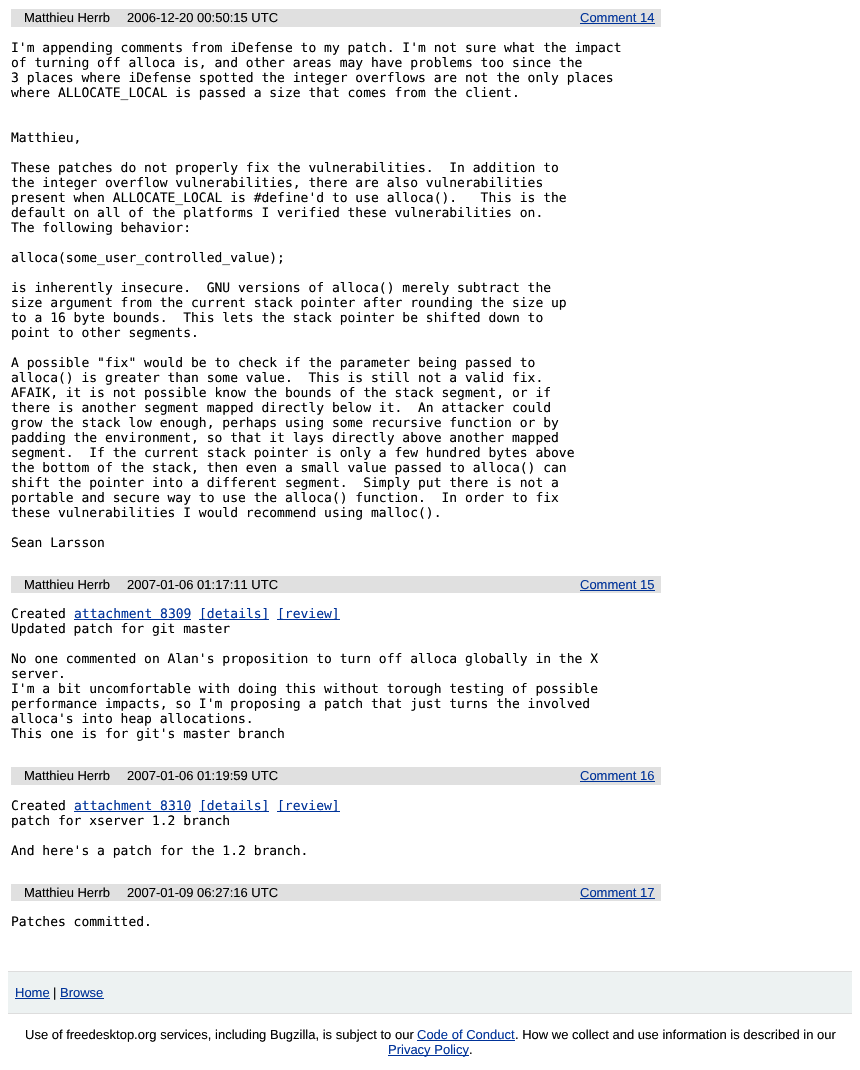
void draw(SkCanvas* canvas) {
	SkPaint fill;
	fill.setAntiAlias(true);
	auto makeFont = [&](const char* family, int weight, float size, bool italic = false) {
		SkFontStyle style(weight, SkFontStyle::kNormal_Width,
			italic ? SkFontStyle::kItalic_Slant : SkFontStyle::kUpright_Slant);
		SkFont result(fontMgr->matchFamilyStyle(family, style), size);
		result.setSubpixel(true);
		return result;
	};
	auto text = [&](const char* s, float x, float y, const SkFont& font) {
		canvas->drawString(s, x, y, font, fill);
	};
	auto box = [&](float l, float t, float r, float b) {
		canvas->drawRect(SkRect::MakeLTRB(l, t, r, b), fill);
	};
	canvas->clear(0xFFFFFFFF);
	fill.setColor(0xFFE0E0E0);
	box(11, 9, 661, 27);
	fill.setColor(0xFF003399);
	box(580, 23, 655, 24);
	fill.setColor(0xFFE0E0E0);
	box(11, 576, 661, 593);
	fill.setColor(0xFF003399);
	box(580, 590, 655, 591);
	box(74, 619, 191, 620);
	box(199, 619, 269, 620);
	box(277, 619, 340, 620);
	fill.setColor(0xFFE0E0E0);
	box(11, 767, 661, 785);
	fill.setColor(0xFF003399);
	box(580, 781, 655, 782);
	box(74, 811, 191, 812);
	box(199, 811, 269, 812);
	box(277, 811, 340, 812);
	fill.setColor(0xFFE0E0E0);
	box(11, 884, 661, 901);
	fill.setColor(0xFF003399);
	box(580, 898, 655, 899);
	fill.setColor(0xFFEDF2F2);
	box(8, 972, 852, 1013);
	fill.setColor(0xFFDDDDDD);
	box(8, 971, 852, 972);
	box(8, 1013, 852, 1014);
	fill.setColor(0xFF003399);
	box(15, 998, 50, 999);
	box(60, 998, 104, 999);
	box(417, 1040, 515, 1041);
	box(388, 1055, 469, 1056);
	auto font1 = makeFont("Liberation Sans", 400, 13);
	fill.setColor(0xFF000000);
	text("Matthieu Herrb", 24, 22, font1);
	text("2006-12-20 00:50:15 UTC", 127, 22, font1);
	fill.setColor(0xFF003399);
	text("Comment 14", 580, 22, font1);
	auto font2 = makeFont("DejaVu Sans Mono", 400, 13);
	fill.setColor(0xFF000000);
	text("I'm appending comments from iDefense to my patch. I'm not sure what the impact", 11, 52, font2);
	text("of turning off alloca is, and other areas may have problems too since the", 11, 67, font2);
	text("3 places where iDefense spotted the integer overflows are not the only places", 11, 82, font2);
	text("where ALLOCATE_LOCAL is passed a size that comes from the client.", 11, 97, font2);
	text("Matthieu,", 11, 142, font2);
	text("These patches do not properly fix the vulnerabilities.  In addition to", 11, 172, font2);
	text("the integer overflow vulnerabilities, there are also vulnerabilities", 11, 187, font2);
	text("present when ALLOCATE_LOCAL is #define'd to use alloca().   This is the", 11, 202, font2);
	text("default on all of the platforms I verified these vulnerabilities on.", 11, 217, font2);
	text("The following behavior:", 11, 232, font2);
	text("alloca(some_user_controlled_value);", 11, 262, font2);
	text("is inherently insecure.  GNU versions of alloca() merely subtract the", 11, 292, font2);
	text("size argument from the current stack pointer after rounding the size up", 11, 307, font2);
	text("to a 16 byte bounds.  This lets the stack pointer be shifted down to", 11, 322, font2);
	text("point to other segments.", 11, 337, font2);
	text("A possible \"fix\" would be to check if the parameter being passed to", 11, 367, font2);
	text("alloca() is greater than some value.  This is still not a valid fix.", 11, 382, font2);
	text("AFAIK, it is not possible know the bounds of the stack segment, or if", 11, 397, font2);
	text("there is another segment mapped directly below it.  An attacker could", 11, 412, font2);
	text("grow the stack low enough, perhaps using some recursive function or by", 11, 427, font2);
	text("padding the environment, so that it lays directly above another mapped", 11, 442, font2);
	text("segment.  If the current stack pointer is only a few hundred bytes above", 11, 457, font2);
	text("the bottom of the stack, then even a small value passed to alloca() can", 11, 472, font2);
	text("shift the pointer into a different segment.  Simply put there is not a", 11, 487, font2);
	text("portable and secure way to use the alloca() function.  In order to fix", 11, 502, font2);
	text("these vulnerabilities I would recommend using malloc().", 11, 517, font2);
	text("Sean Larsson", 11, 547, font2);
	text("Matthieu Herrb", 24, 589, font1);
	text("2007-01-06 01:17:11 UTC", 127, 589, font1);
	fill.setColor(0xFF003399);
	text("Comment 15", 580, 589, font1);
	fill.setColor(0xFF000000);
	text("Created", 11, 618, font2);
	fill.setColor(0xFF003399);
	text("attachment 8309", 74, 618, font2);
	text("[details]", 199, 618, font2);
	text("[review]", 277, 618, font2);
	fill.setColor(0xFF000000);
	text("Updated patch for git master", 11, 633, font2);
	text("No one commented on Alan's proposition to turn off alloca globally in the X", 11, 663, font2);
	text("server.", 11, 678, font2);
	text("I'm a bit uncomfortable with doing this without torough testing of possible", 11, 693, font2);
	text("performance impacts, so I'm proposing a patch that just turns the involved", 11, 708, font2);
	text("alloca's into heap allocations.", 11, 723, font2);
	text("This one is for git's master branch", 11, 738, font2);
	text("Matthieu Herrb", 24, 780, font1);
	text("2007-01-06 01:19:59 UTC", 127, 780, font1);
	fill.setColor(0xFF003399);
	text("Comment 16", 580, 780, font1);
	fill.setColor(0xFF000000);
	text("Created", 11, 810, font2);
	fill.setColor(0xFF003399);
	text("attachment 8310", 74, 810, font2);
	text("[details]", 199, 810, font2);
	text("[review]", 277, 810, font2);
	fill.setColor(0xFF000000);
	text("patch for xserver 1.2 branch", 11, 825, font2);
	text("And here's a patch for the 1.2 branch.", 11, 855, font2);
	text("Matthieu Herrb", 24, 897, font1);
	text("2007-01-09 06:27:16 UTC", 127, 897, font1);
	fill.setColor(0xFF003399);
	text("Comment 17", 580, 897, font1);
	fill.setColor(0xFF000000);
	text("Patches committed.", 11, 926, font2);
	fill.setColor(0xFF003399);
	text("Home", 15, 997, font1);
	fill.setColor(0xFF000000);
	text("|", 53, 997, font1);
	fill.setColor(0xFF003399);
	text("Browse", 60, 997, font1);
	fill.setColor(0xFF000000);
	text("Use of freedesktop.org services, including Bugzilla, is subject to our", 25, 1039, font1);
	fill.setColor(0xFF003399);
	text("Code of Conduct", 417, 1039, font1);
	fill.setColor(0xFF000000);
	text(". How we collect and use information is described in our", 515, 1039, font1);
	fill.setColor(0xFF003399);
	text("Privacy Policy", 388, 1054, font1);
	fill.setColor(0xFF000000);
	text(".", 469, 1054, font1);
}
